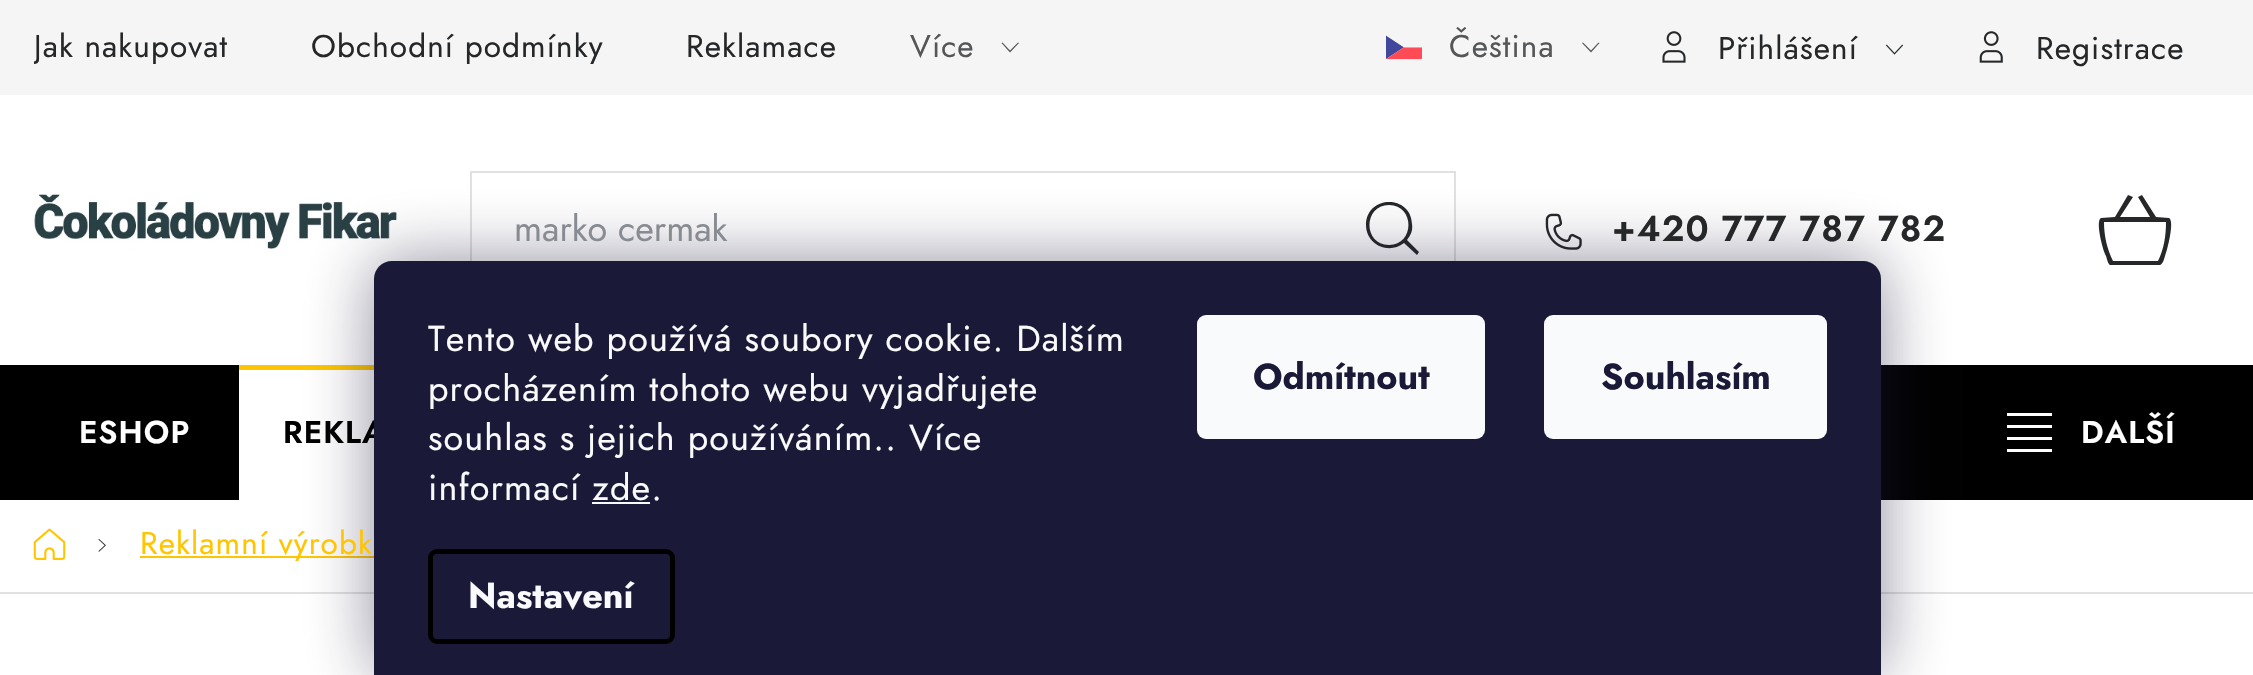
void draw(SkCanvas* canvas) {
	SkPaint fill;
	fill.setAntiAlias(true);
	auto makeFont = [&](const char* family, int weight, float size, bool italic = false) {
		SkFontStyle style(weight, SkFontStyle::kNormal_Width,
			italic ? SkFontStyle::kItalic_Slant : SkFontStyle::kUpright_Slant);
		SkFont result(fontMgr->matchFamilyStyle(family, style), size);
		result.setSubpixel(true);
		return result;
	};
	auto text = [&](const char* s, float x, float y, const SkFont& font) {
		canvas->drawString(s, x, y, font, fill);
	};
	auto spacedText = [&](const char* s, float x, float y, const SkFont& font, const SkPaint& ink, float letter, float word) {
		std::vector<SkGlyphID> glyphs(font.countText(s, strlen(s), SkTextEncoding::kUTF8));
		std::vector<float> xs(glyphs.size());
		font.textToGlyphs(s, strlen(s), SkTextEncoding::kUTF8, glyphs);
		font.getXPos(glyphs, xs, x);
		float extra = 0;
		for (size_t i = 0; i < glyphs.size(); i++) {
			xs[i] += extra;
			extra += letter + word * (glyphs[i] == font.unicharToGlyph(' '));
		}
		canvas->drawTextBlob(SkTextBlob::MakeFromPosHGlyphs(glyphs, xs, y, font), 0, 0, ink);
	};
	auto box = [&](float l, float t, float r, float b) {
		canvas->drawRect(SkRect::MakeLTRB(l, t, r, b), fill);
	};
	auto roundBox = [&](float l, float t, float r, float b, float radius) {
		canvas->drawRoundRect(SkRect::MakeLTRB(l, t, r, b), radius, radius, fill);
	};
	auto picture = [&](const char* path, float l, float t, float r, float b) {
		auto image = SkImages::DeferredFromEncodedData(SkData::MakeFromFileName(path));
		canvas->drawImageRect(image, SkRect::MakeLTRB(l, t, r, b), SkSamplingOptions());
	};
	canvas->clear(0xFFFFFFFF);
	fill.setColor(0xFFF5F5F5);
	box(0, 0, 2253, 95);
	fill.setColor(0xFF555658);
	canvas->drawPath(SkPathBuilder().moveTo(1002.5f, 42.5f).lineTo(1010, 50.5f).lineTo(1018, 42.5f).lineTo(1019, 43).lineTo(1010, 52.5f).lineTo(1001.5f, 43).close().detach(), fill);
	picture("image0.png", 1386, 35, 1422, 60);
	canvas->drawPath(SkPathBuilder().moveTo(1583, 42.5f).lineTo(1591, 50.5f).lineTo(1598.5f, 42.5f).lineTo(1599.5f, 43).lineTo(1591, 52.5f).lineTo(1582, 43).close().detach(), fill);
	picture("image1.png", 1662, 31, 1686, 63);
	picture("image2.png", 1885, 44, 1904, 55);
	picture("image3.png", 1979, 31, 2003, 63);
	picture("image4.png", 34, 194, 398, 249);
	fill.setStyle(SkPaint::kStroke_Style);
	fill.setStrokeWidth(2);
	fill.setColor(0xFFE1E1E2);
	canvas->drawRect(SkRect::MakeLTRB(471, 172, 1455, 287), fill);
	fill.setStyle(SkPaint::kFill_Style);
	fill.setColor(0xFF252729);
	canvas->drawPath(SkPathBuilder().moveTo(1366, 225).cubicTo(1366, 195, 1411, 194, 1412, 224).cubicTo(1413, 230, 1411, 235, 1407, 240).lineTo(1419, 252).lineTo(1417, 255).lineTo(1404, 243).cubicTo(1389, 255, 1366, 245, 1366, 225).close().moveTo(1389, 205).cubicTo(1363, 205, 1363, 245, 1389, 245).cubicTo(1415, 245, 1415, 205, 1389, 205).close().detach(), fill);
	picture("image5.png", 1545, 213, 1582, 250);
	canvas->drawPath(SkPathBuilder().moveTo(2115, 217).lineTo(2128, 195).lineTo(2133, 197).lineTo(2120, 217).lineTo(2150, 217).lineTo(2138, 197).lineTo(2142, 195).lineTo(2156, 217).lineTo(2169, 218).cubicTo(2175, 221, 2167, 251, 2165, 256).cubicTo(2164, 259, 2163, 264, 2160, 265).lineTo(2110, 265).cubicTo(2108, 264, 2107, 259, 2106, 256).cubicTo(2103, 251, 2095, 221, 2101, 218).close().moveTo(2104, 222).cubicTo(2104, 236, 2107, 249, 2113, 261).lineTo(2158, 261).cubicTo(2164, 249, 2166, 236, 2166, 222).close().detach(), fill);
	fill.setColor(0xFF000000);
	box(0, 365, 2253, 500);
	fill.setColor(0xFFFFFFFF);
	box(239, 370, 374, 500);
	fill.setColor(0xFFFFC500);
	box(239, 365, 374, 370);
	fill.setColor(0xFFFFFFFF);
	canvas->drawPath(SkPathBuilder().moveTo(2052, 416).lineTo(2007, 416).lineTo(2007, 413).lineTo(2052, 413).close().moveTo(2052, 428).lineTo(2007, 428).lineTo(2007, 425).lineTo(2052, 425).close().moveTo(2052, 440).lineTo(2007, 440).lineTo(2007, 437).lineTo(2052, 437).close().moveTo(2052, 452).lineTo(2007, 452).lineTo(2007, 449).lineTo(2052, 449).close().detach(), fill);
	fill.setColor(0xFFE1E1E2);
	box(0, 592, 2253, 594);
	picture("image6.png", 33, 528, 66, 560);
	picture("image7.png", 98, 539, 106, 552);
	fill.setColor(0xFFFFC500);
	box(140, 556, 374, 558);
	fill.setColor(0x801B1939);
	fill.setMaskFilter(SkMaskFilter::MakeBlur(kNormal_SkBlurStyle, 34));
	canvas->drawRoundRect(SkRect::MakeLTRB(374, 261, 1881, 675), 18, 18, fill);
	fill.setMaskFilter(nullptr);
	canvas->save();
	canvas->clipRect(SkRect::MakeLTRB(34, 2, 1127, 95));
	auto font1 = makeFont("Jost", 400, 31.5f);
	fill.setColor(0xFF252729);
	spacedText("Jak nakupovat", 34, 57, font1, fill, 1.1f, 0);
	canvas->restore();
	spacedText("Obchodní podmínky", 311, 57, font1, fill, 1.1f, 0);
	spacedText("Reklamace", 686, 57, font1, fill, 1.1f, 0);
	fill.setColor(0xFF555658);
	spacedText("Více", 910, 57, font1, fill, 1.1f, 0);
	spacedText("Čeština", 1449, 57, font1, fill, 1.1f, 0);
	fill.setColor(0xFF252729);
	spacedText("Přihlášení", 1718, 59, font1, fill, 1.1f, 0);
	spacedText("Registrace", 2036, 59, font1, fill, 1.1f, 0);
	auto font2 = makeFont("Jost", 400, 36);
	fill.setColor(0xFF888C92);
	text("marko cermak", 514, 241, font2);
	auto font3 = makeFont("Jost", 600, 36);
	fill.setColor(0xFF252729);
	spacedText("+420 777 787 782", 1612, 241, font3, fill, 1.1f, 0);
	auto font4 = makeFont("Jost", 600, 31.5f);
	fill.setColor(0xFFFFFFFF);
	spacedText("ESHOP", 79, 443, font4, fill, 1.1f, 0);
	fill.setColor(0xFF000000);
	spacedText("REKLA", 283, 443, font4, fill, 1.1f, 0);
	fill.setColor(0xFFFFFFFF);
	spacedText("DALŠÍ", 2081, 443, font4, fill, 1.1f, 0);
	fill.setColor(0xFFFFC500);
	spacedText("Reklamní výrobk", 140, 554, font1, fill, 1.1f, 0);
	fill.setColor(0xFF1A1937);
	canvas->drawPath(SkPathBuilder().moveTo(392, 261).lineTo(1863, 261).cubicTo(1873, 261, 1881, 269, 1881, 279).lineTo(1881, 675).lineTo(374, 675).lineTo(374, 279).cubicTo(374, 269, 382, 261, 392, 261).close().detach(), fill);
	fill.setColor(0xFFF8FAFB);
	spacedText("Tento web používá soubory cookie. Dalším", 428, 351, font2, fill, 1.1f, 0);
	spacedText("procházením tohoto webu vyjadřujete", 428, 401, font2, fill, 1.1f, 0);
	spacedText("souhlas s jejich používáním.. Více", 428, 450, font2, fill, 1.1f, 0);
	spacedText("informací zde.", 428, 500, font2, fill, 1.1f, 0);
	box(592, 502, 650, 504);
	fill.setStyle(SkPaint::kStroke_Style);
	fill.setStrokeWidth(5);
	fill.setColor(0xFF000000);
	canvas->drawRoundRect(SkRect::MakeLTRB(430.5f, 551.5f, 672.5f, 641.5f), 6.5f, 6.5f, fill);
	auto font5 = makeFont("Jost", 700, 36);
	fill.setStyle(SkPaint::kFill_Style);
	fill.setColor(0xFFF8FAFB);
	text("Nastavení", 468, 608, font5);
	roundBox(1197, 315, 1485, 439, 9);
	fill.setColor(0xFF1A1937);
	text("Odmítnout", 1253, 389, font5);
	fill.setColor(0xFFF8FAFB);
	roundBox(1544, 315, 1827, 439, 9);
	fill.setColor(0xFF1A1937);
	text("Souhlasím", 1601, 389, font5);
}
